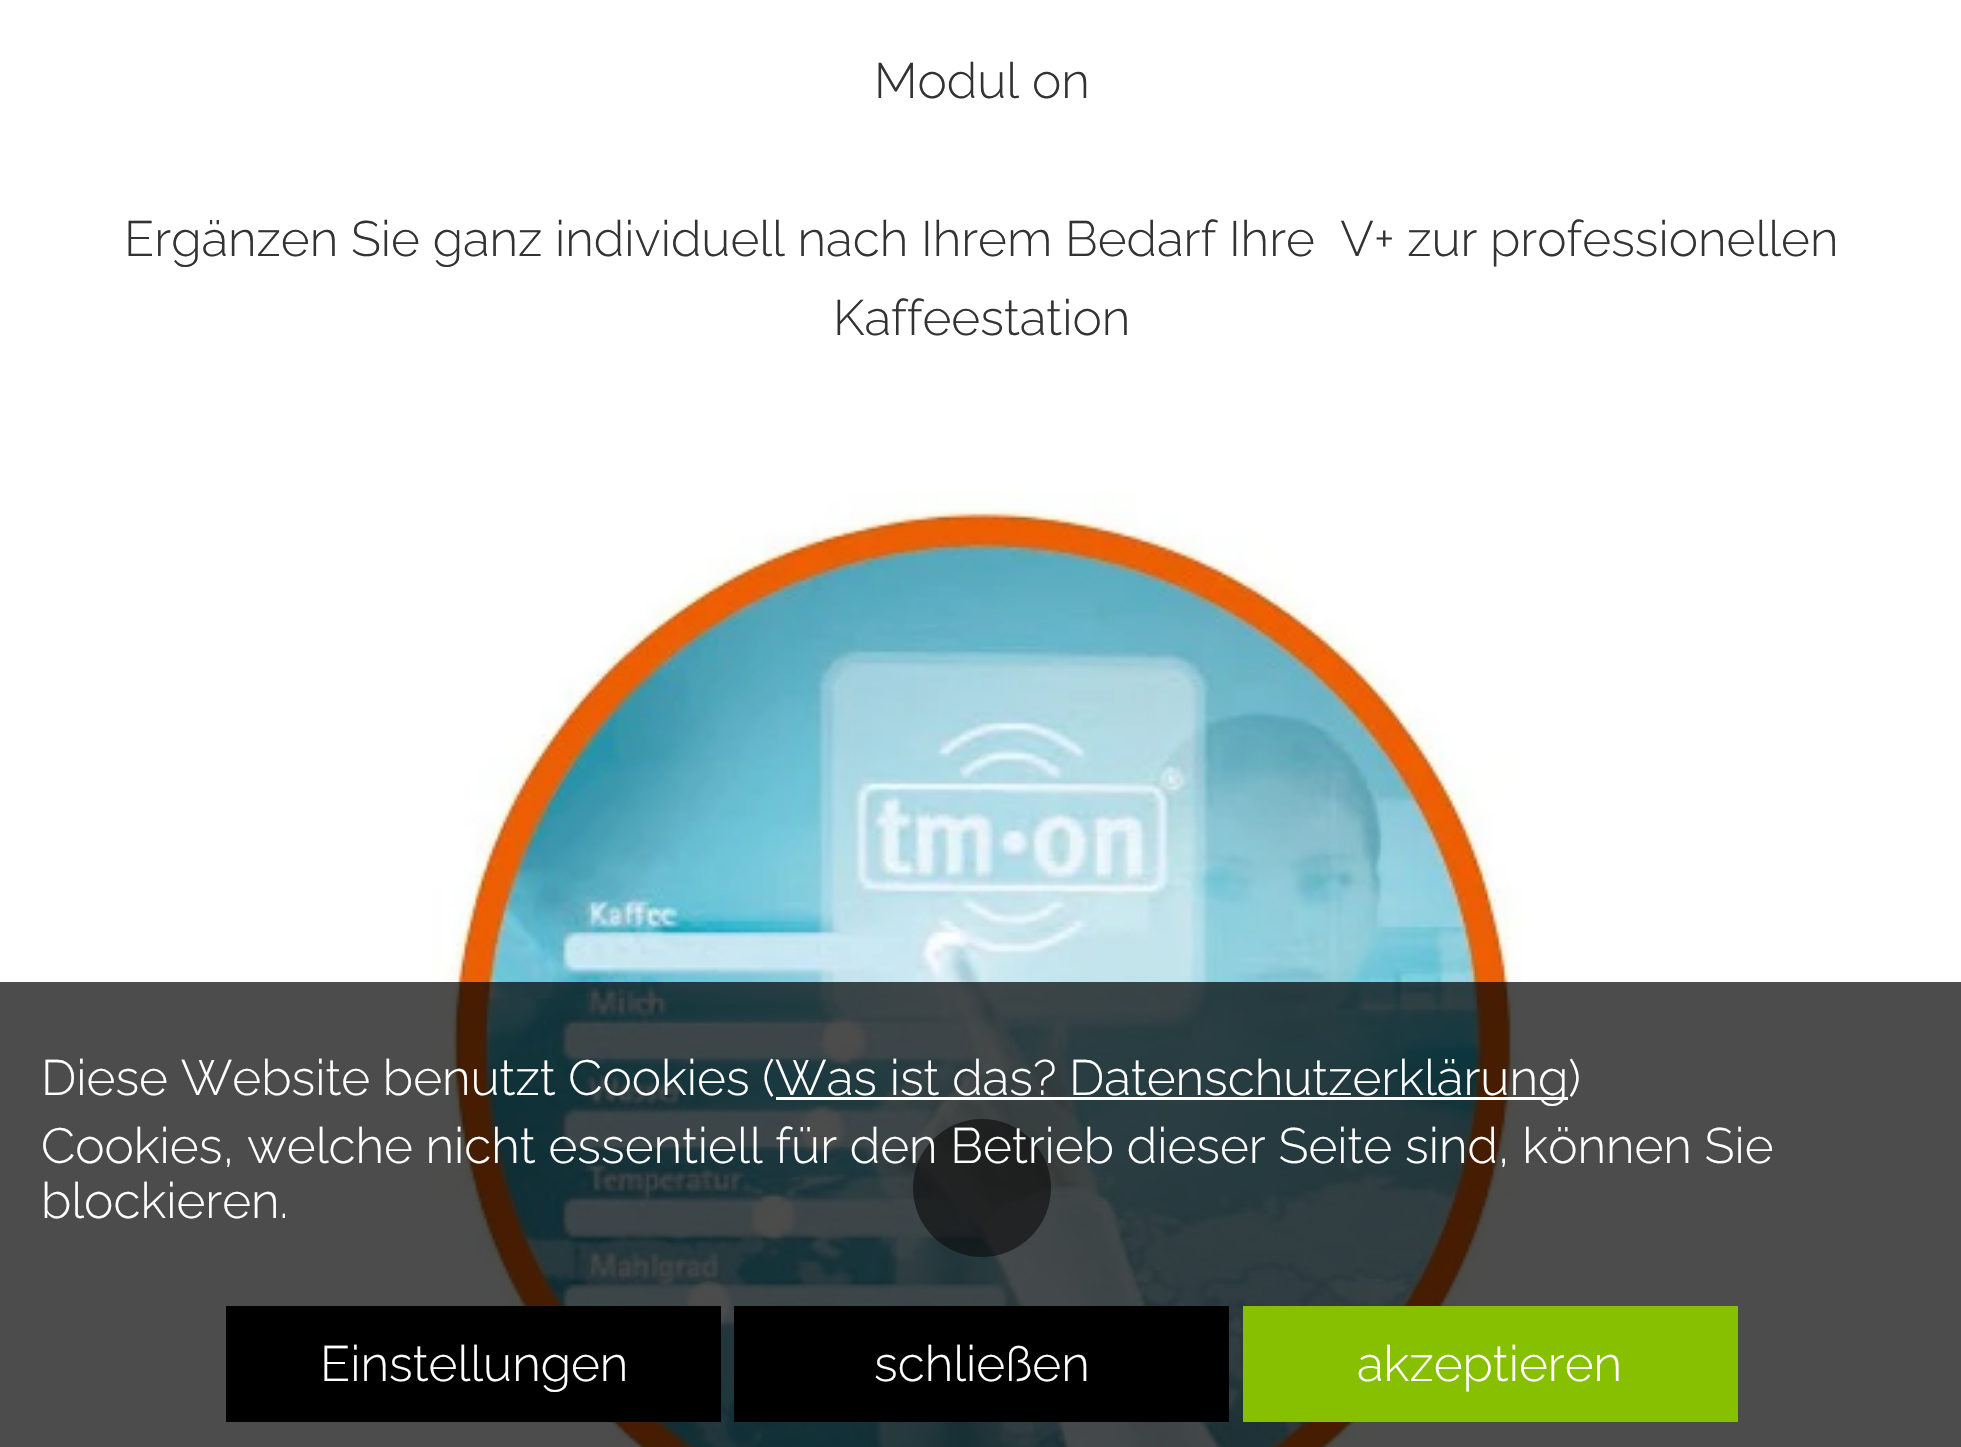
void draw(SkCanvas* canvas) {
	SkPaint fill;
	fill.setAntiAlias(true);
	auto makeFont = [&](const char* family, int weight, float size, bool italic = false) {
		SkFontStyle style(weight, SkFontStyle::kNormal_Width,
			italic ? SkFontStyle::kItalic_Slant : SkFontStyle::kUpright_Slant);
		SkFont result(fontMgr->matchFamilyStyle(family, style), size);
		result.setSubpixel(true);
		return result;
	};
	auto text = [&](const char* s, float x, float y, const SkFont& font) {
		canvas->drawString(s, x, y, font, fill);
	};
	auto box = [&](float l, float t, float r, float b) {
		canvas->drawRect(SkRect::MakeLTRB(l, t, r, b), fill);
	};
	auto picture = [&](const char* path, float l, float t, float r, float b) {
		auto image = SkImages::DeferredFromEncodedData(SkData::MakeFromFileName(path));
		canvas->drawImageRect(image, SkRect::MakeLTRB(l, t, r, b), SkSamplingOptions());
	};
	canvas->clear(0xFFFFFFFF);
	picture("image0.png", 432, 492, 1522, 1447);
	fill.setColor(0x99222222);
	canvas->drawCircle(982, 1188, 69, fill);
	fill.setColor(0xB3000000);
	box(0, 982, 1961, 1447);
	fill.setColor(0xFFFFFFFF);
	box(776, 1097, 1568, 1100);
	fill.setColor(0xFF000000);
	box(226, 1306, 721, 1422);
	box(734, 1306, 1229, 1422);
	fill.setColor(0xFF87BF01);
	box(1243, 1306, 1738, 1422);
	auto font1 = makeFont("Raleway", 300, 49.5f);
	fill.setColor(0xFF333333);
	text("Modul on", 874, 98, font1);
	text("Ergänzen Sie ganz individuell nach Ihrem Bedarf Ihre  V+ zur professionellen", 124, 256, font1);
	text("Kaffeestation", 833, 335, font1);
	fill.setColor(0xFFFFFFFF);
	text("Diese Website benutzt Cookies (", 41, 1095, font1);
	text("Was ist das? Datenschutzerklärung)", 775, 1095, font1);
	text("Cookies, welche nicht essentiell für den Betrieb dieser Seite sind, können Sie", 41, 1163, font1);
	text("blockieren.", 41, 1218, font1);
	text("Einstellungen", 320, 1381, font1);
	text("schließen", 874, 1381, font1);
	text("akzeptieren", 1357, 1381, font1);
}
